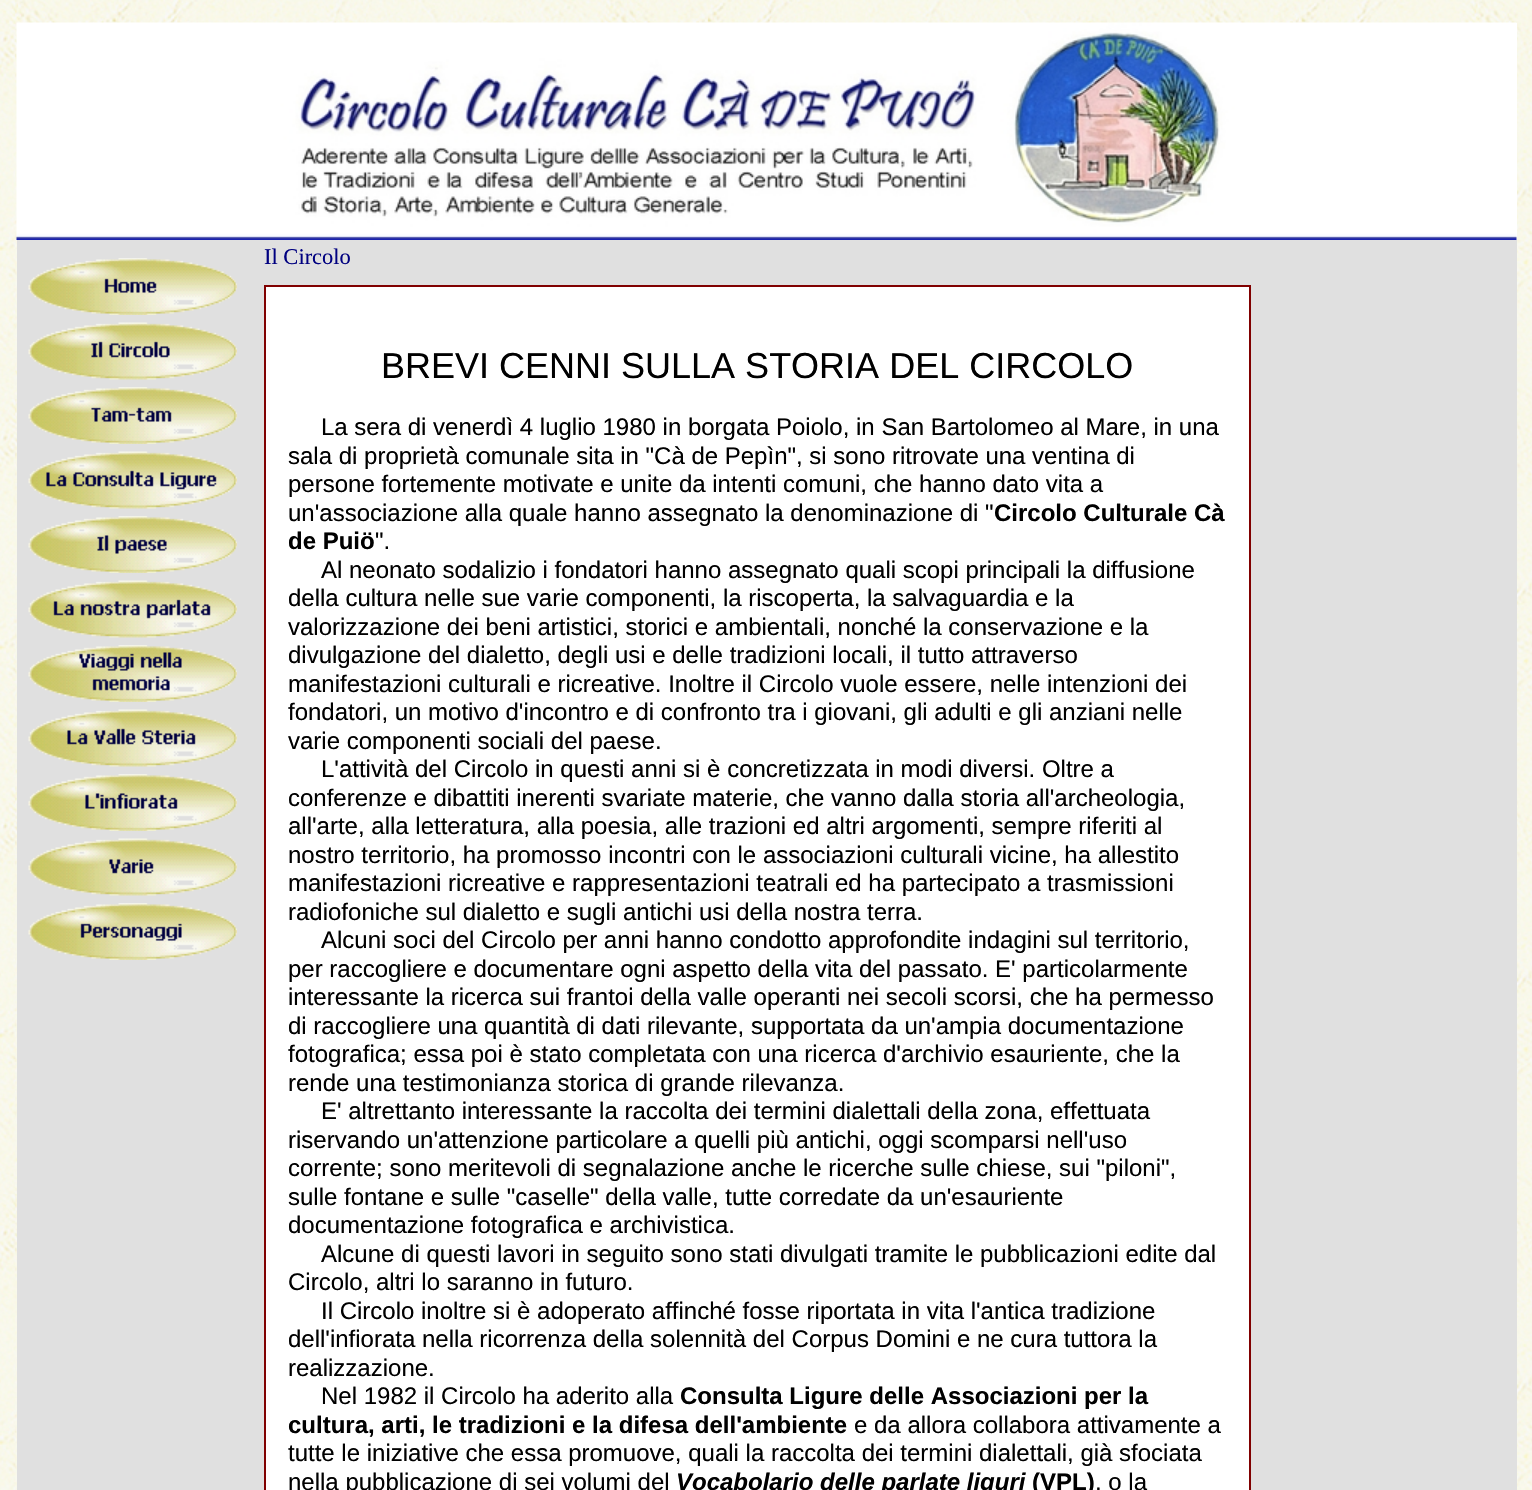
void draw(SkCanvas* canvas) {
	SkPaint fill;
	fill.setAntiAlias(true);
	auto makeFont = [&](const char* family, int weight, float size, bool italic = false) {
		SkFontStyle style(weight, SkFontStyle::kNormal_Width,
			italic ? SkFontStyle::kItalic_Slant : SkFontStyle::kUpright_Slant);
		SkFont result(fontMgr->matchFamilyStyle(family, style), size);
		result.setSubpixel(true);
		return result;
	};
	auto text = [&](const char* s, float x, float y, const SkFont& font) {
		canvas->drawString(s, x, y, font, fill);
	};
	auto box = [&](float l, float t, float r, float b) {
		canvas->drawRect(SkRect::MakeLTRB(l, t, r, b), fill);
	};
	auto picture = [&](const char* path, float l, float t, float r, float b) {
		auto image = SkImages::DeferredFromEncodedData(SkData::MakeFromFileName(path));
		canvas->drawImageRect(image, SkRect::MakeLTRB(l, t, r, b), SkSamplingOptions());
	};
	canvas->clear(0xFFFFFFFF);
	picture("image0.png", 0, 0, 1532, 1490);
	fill.setColor(0xFFFFFFFF);
	box(1516, 23, 1517, 240);
	picture("image1.png", 16, 22, 1517, 240);
	fill.setColor(0xFFE0E0E0);
	box(17, 240, 1517, 1490);
	picture("image2.png", 28, 258, 237, 315);
	picture("image3.png", 28, 322, 237, 380);
	picture("image4.png", 28, 387, 237, 444);
	picture("image5.png", 28, 451, 237, 509);
	picture("image6.png", 28, 516, 237, 573);
	picture("image7.png", 28, 580, 237, 638);
	picture("image8.png", 28, 645, 237, 702);
	picture("image9.png", 28, 709, 237, 767);
	picture("image10.png", 28, 774, 237, 831);
	picture("image11.png", 28, 838, 237, 896);
	picture("image12.png", 28, 903, 237, 960);
	fill.setColor(0xFFFFFFFF);
	canvas->drawRect(SkRect::MakeLTRB(265, 286, 1250, 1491), fill);
	fill.setStyle(SkPaint::kStroke_Style);
	fill.setStrokeWidth(2);
	fill.setColor(0xFF800000);
	canvas->drawRect(SkRect::MakeLTRB(265, 286, 1250, 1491), fill);
	auto font1 = makeFont("Liberation Serif", 400, 22.5f);
	fill.setStyle(SkPaint::kFill_Style);
	fill.setColor(0xFF000080);
	text("Il Circolo", 264, 264, font1);
	auto font2 = makeFont("Liberation Sans", 400, 36);
	fill.setColor(0xFF000000);
	text("BREVI CENNI SULLA STORIA DEL CIRCOLO", 381, 378, font2);
	auto font3 = makeFont("Liberation Sans", 400, 24);
	text("La sera di venerdì 4 luglio 1980 in borgata Poiolo, in San Bartolomeo al Mare, in una", 321, 435, font3);
	text("sala di proprietà comunale sita in \"Cà de Pepìn\", si sono ritrovate una ventina di", 288, 464, font3);
	text("persone fortemente motivate e unite da intenti comuni, che hanno dato vita a", 288, 492, font3);
	text("un'associazione alla quale hanno assegnato la denominazione di \"", 288, 521, font3);
	auto font4 = makeFont("Liberation Sans", 700, 24);
	text("Circolo Culturale Cà", 994, 521, font4);
	text("de Puiö", 288, 549, font4);
	text("\".", 375, 549, font3);
	text("Al neonato sodalizio i fondatori hanno assegnato quali scopi principali la diffusione", 321, 578, font3);
	text("della cultura nelle sue varie componenti, la riscoperta, la salvaguardia e la", 288, 606, font3);
	text("valorizzazione dei beni artistici, storici e ambientali, nonché la conservazione e la", 288, 635, font3);
	text("divulgazione del dialetto, degli usi e delle tradizioni locali, il tutto attraverso", 288, 663, font3);
	text("manifestazioni culturali e ricreative. Inoltre il Circolo vuole essere, nelle intenzioni dei", 288, 692, font3);
	text("fondatori, un motivo d'incontro e di confronto tra i giovani, gli adulti e gli anziani nelle", 288, 720, font3);
	text("varie componenti sociali del paese.", 288, 749, font3);
	text("L'attività del Circolo in questi anni si è concretizzata in modi diversi. Oltre a", 321, 777, font3);
	text("conferenze e dibattiti inerenti svariate materie, che vanno dalla storia all'archeologia,", 288, 806, font3);
	text("all'arte, alla letteratura, alla poesia, alle trazioni ed altri argomenti, sempre riferiti al", 288, 834, font3);
	text("nostro territorio, ha promosso incontri con le associazioni culturali vicine, ha allestito", 288, 863, font3);
	text("manifestazioni ricreative e rappresentazioni teatrali ed ha partecipato a trasmissioni", 288, 891, font3);
	text("radiofoniche sul dialetto e sugli antichi usi della nostra terra.", 288, 920, font3);
	text("Alcuni soci del Circolo per anni hanno condotto approfondite indagini sul territorio,", 321, 948, font3);
	text("per raccogliere e documentare ogni aspetto della vita del passato. E' particolarmente", 288, 977, font3);
	text("interessante la ricerca sui frantoi della valle operanti nei secoli scorsi, che ha permesso", 288, 1005, font3);
	text("di raccogliere una quantità di dati rilevante, supportata da un'ampia documentazione", 288, 1034, font3);
	text("fotografica; essa poi è stato completata con una ricerca d'archivio esauriente, che la", 288, 1062, font3);
	text("rende una testimonianza storica di grande rilevanza.", 288, 1091, font3);
	text("E' altrettanto interessante la raccolta dei termini dialettali della zona, effettuata", 321, 1119, font3);
	text("riservando un'attenzione particolare a quelli più antichi, oggi scomparsi nell'uso", 288, 1148, font3);
	text("corrente; sono meritevoli di segnalazione anche le ricerche sulle chiese, sui \"piloni\",", 288, 1176, font3);
	text("sulle fontane e sulle \"caselle\" della valle, tutte corredate da un'esauriente", 288, 1205, font3);
	text("documentazione fotografica e archivistica.", 288, 1233, font3);
	text("Alcune di questi lavori in seguito sono stati divulgati tramite le pubblicazioni edite dal", 321, 1262, font3);
	text("Circolo, altri lo saranno in futuro.", 288, 1290, font3);
	text("Il Circolo inoltre si è adoperato affinché fosse riportata in vita l'antica tradizione", 321, 1319, font3);
	text("dell'infiorata nella ricorrenza della solennità del Corpus Domini e ne cura tuttora la", 288, 1347, font3);
	text("realizzazione.", 288, 1376, font3);
	text("Nel 1982 il Circolo ha aderito alla", 321, 1404, font3);
	text("Consulta Ligure delle Associazioni per la", 680, 1404, font4);
	text("cultura, arti, le tradizioni e la difesa dell'ambiente", 288, 1433, font4);
	text("e da allora collabora attivamente a", 854, 1433, font3);
	text("tutte le iniziative che essa promuove, quali la raccolta dei termini dialettali, già sfociata", 288, 1461, font3);
	text("nella pubblicazione di sei volumi del", 288, 1490, font3);
	auto font5 = makeFont("Liberation Sans", 700, 24, true);
	text("Vocabolario delle parlate liguri", 676, 1490, font5);
	text("(VPL)", 1032, 1490, font4);
	text(", o la", 1095, 1490, font3);
}
